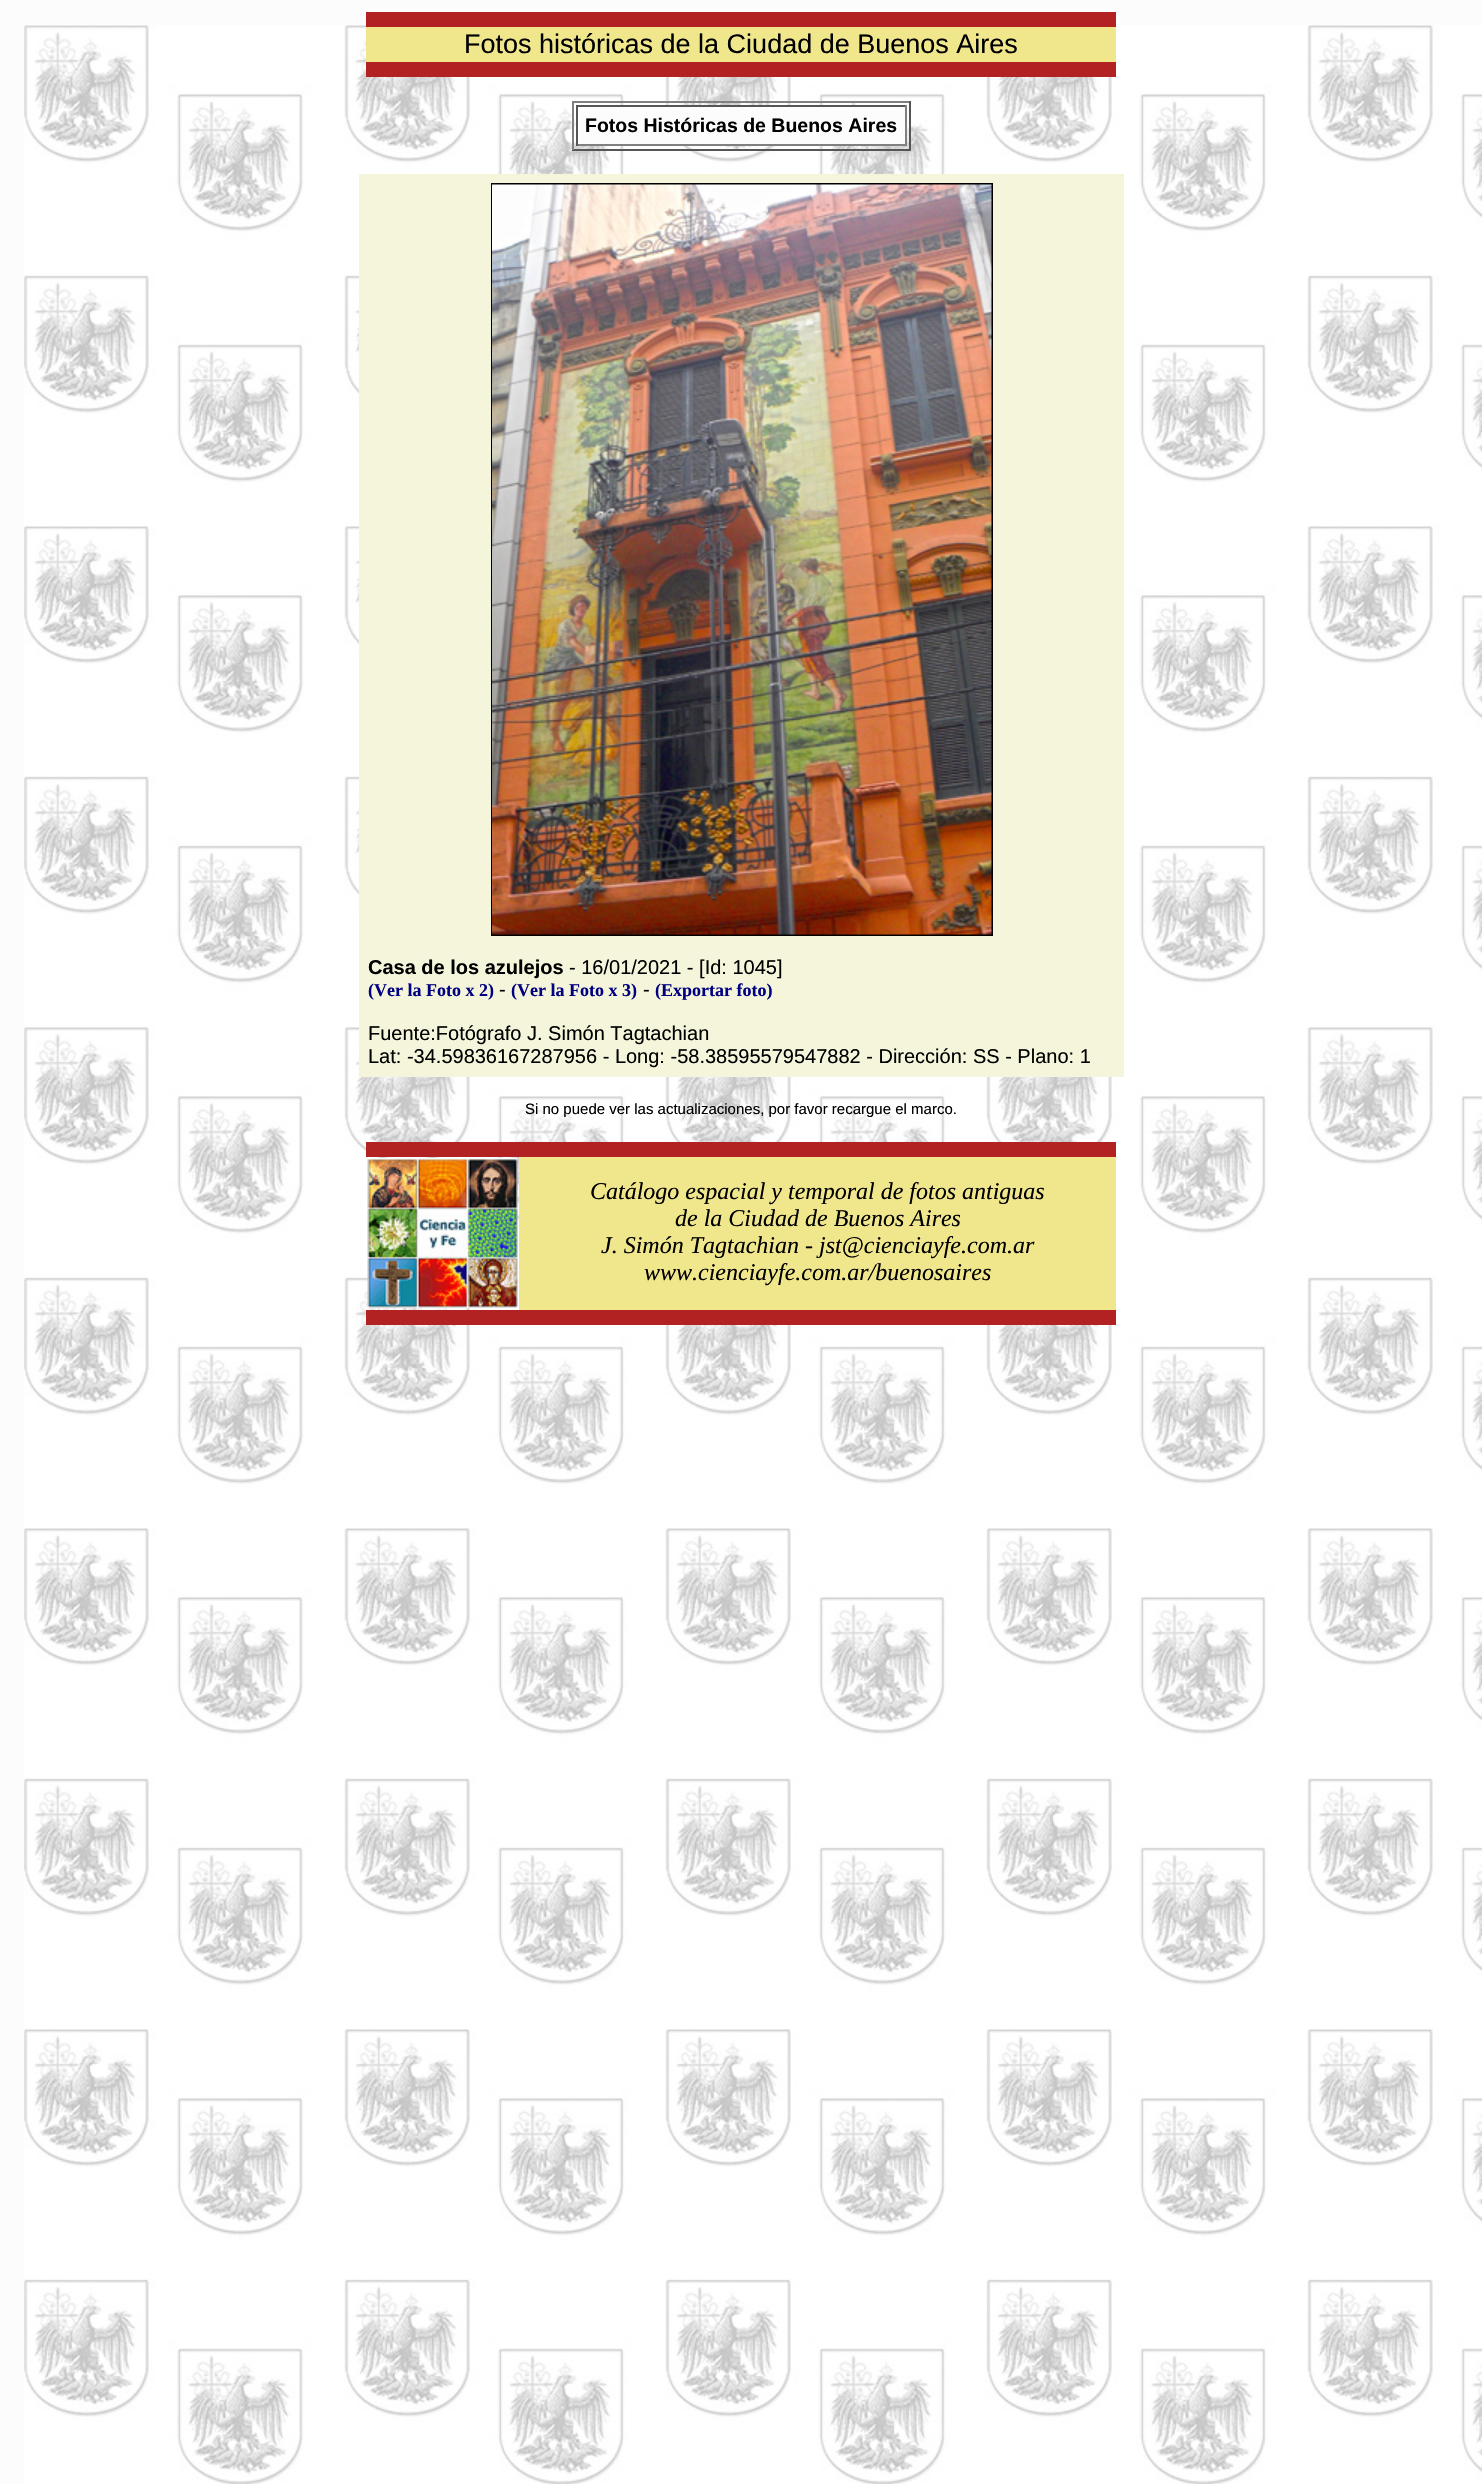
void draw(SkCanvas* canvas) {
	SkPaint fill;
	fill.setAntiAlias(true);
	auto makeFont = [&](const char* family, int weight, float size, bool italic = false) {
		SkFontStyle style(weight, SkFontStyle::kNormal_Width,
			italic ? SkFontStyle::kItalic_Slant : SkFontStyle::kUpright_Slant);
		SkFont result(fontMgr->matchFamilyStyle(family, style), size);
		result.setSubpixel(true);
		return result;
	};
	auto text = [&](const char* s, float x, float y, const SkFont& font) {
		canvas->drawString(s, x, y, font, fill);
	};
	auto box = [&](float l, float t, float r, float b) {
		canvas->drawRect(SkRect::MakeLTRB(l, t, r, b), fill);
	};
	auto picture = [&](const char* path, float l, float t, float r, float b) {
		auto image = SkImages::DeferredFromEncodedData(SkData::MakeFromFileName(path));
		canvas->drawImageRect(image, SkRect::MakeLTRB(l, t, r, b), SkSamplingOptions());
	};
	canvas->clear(0xFFFCFCFC);
	picture("image0.png", 24, 25, 1482, 2484);
	fill.setColor(0xFFB22222);
	box(366, 12, 1116, 27);
	fill.setColor(0xFFF0E68C);
	box(366, 27, 1116, 62);
	fill.setColor(0xFFB22222);
	box(366, 62, 1116, 77);
	fill.setColor(0xFF808080);
	box(572, 101, 911, 103);
	fill.setColor(0xFF555555);
	box(909, 101, 911, 150);
	box(572, 149, 911, 151);
	fill.setColor(0xFF808080);
	box(572, 101, 574, 150);
	fill.setColor(0xFFFCFCFC);
	box(578, 107, 905, 144);
	fill.setColor(0xFF555555);
	box(576, 105, 906, 107);
	fill.setColor(0xFF808080);
	box(905, 105, 907, 146);
	box(576, 144, 906, 146);
	fill.setColor(0xFF555555);
	box(576, 105, 578, 146);
	fill.setColor(0xFFF5F5DC);
	box(359, 174, 1124, 1077);
	fill.setStyle(SkPaint::kStroke_Style);
	fill.setStrokeWidth(2);
	fill.setColor(0xFF000000);
	canvas->drawRect(SkRect::MakeLTRB(492, 184, 992, 935), fill);
	picture("image1.png", 492, 184, 992, 935);
	fill.setStyle(SkPaint::kFill_Style);
	fill.setColor(0xFFB22222);
	box(366, 1142, 1116, 1157);
	picture("image2.png", 367, 1158, 518, 1308);
	fill.setColor(0xFFF0E68C);
	box(519, 1157, 1116, 1310);
	fill.setColor(0xFFB22222);
	box(366, 1310, 1116, 1325);
	auto font1 = makeFont("Liberation Sans", 400, 27);
	fill.setColor(0xFF000000);
	text("Fotos históricas de la Ciudad de Buenos Aires", 464, 53, font1);
	auto font2 = makeFont("Liberation Sans", 700, 19.5f);
	text("Fotos Históricas de Buenos Aires", 585, 132, font2);
	auto font3 = makeFont("Liberation Sans", 700, 20);
	text("Casa de los azulejos", 368, 974, font3);
	auto font4 = makeFont("Liberation Sans", 400, 20);
	text("- 16/01/2021 - [Id: 1045]", 569, 974, font4);
	auto font5 = makeFont("Liberation Serif", 700, 18);
	fill.setColor(0xFF000080);
	text("(Ver la Foto x 2)", 368, 996, font5);
	fill.setColor(0xFF000000);
	text("-", 499, 996, font4);
	fill.setColor(0xFF000080);
	text("(Ver la Foto x 3)", 511, 996, font5);
	fill.setColor(0xFF000000);
	text("-", 643, 996, font4);
	fill.setColor(0xFF000080);
	text("(Exportar foto)", 655, 996, font5);
	fill.setColor(0xFF000000);
	text("Fuente:Fotógrafo J. Simón Tagtachian", 368, 1040, font4);
	text("Lat: -34.59836167287956 - Long: -58.38595579547882 - Dirección: SS - Plano: 1", 368, 1063, font4);
	auto font6 = makeFont("Liberation Sans", 400, 15);
	text("Si no puede ver las actualizaciones, por favor recargue el marco.", 525, 1114, font6);
	auto font7 = makeFont("Liberation Serif", 400, 24, true);
	text("Catálogo espacial y temporal de fotos antiguas", 590, 1199, font7);
	text("de la Ciudad de Buenos Aires", 675, 1226, font7);
	text("J. Simón Tagtachian - jst@cienciayfe.com.ar", 601, 1253, font7);
	text("www.cienciayfe.com.ar/buenosaires", 644, 1280, font7);
}
